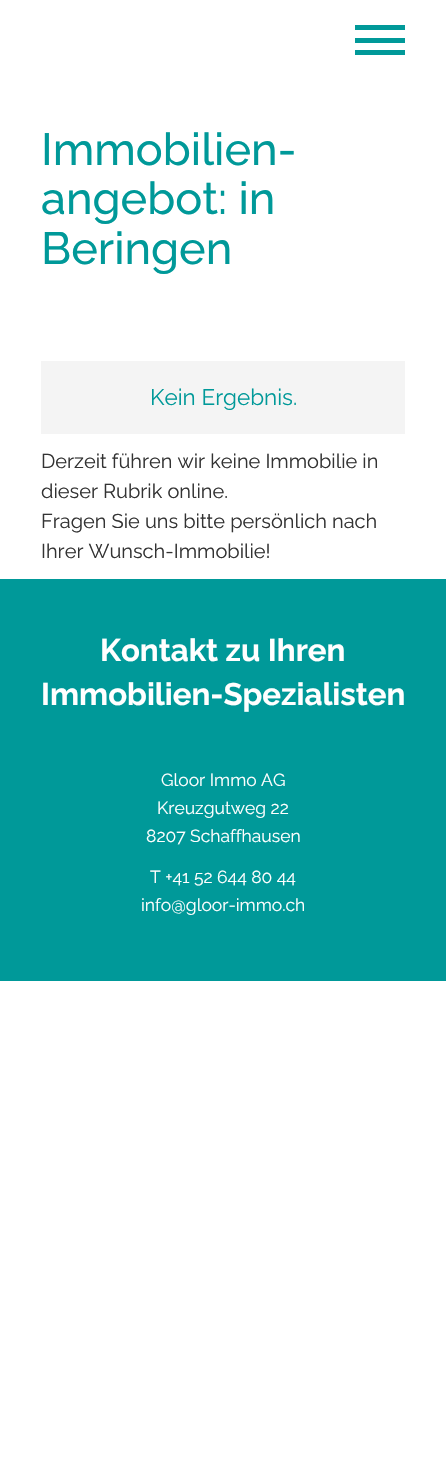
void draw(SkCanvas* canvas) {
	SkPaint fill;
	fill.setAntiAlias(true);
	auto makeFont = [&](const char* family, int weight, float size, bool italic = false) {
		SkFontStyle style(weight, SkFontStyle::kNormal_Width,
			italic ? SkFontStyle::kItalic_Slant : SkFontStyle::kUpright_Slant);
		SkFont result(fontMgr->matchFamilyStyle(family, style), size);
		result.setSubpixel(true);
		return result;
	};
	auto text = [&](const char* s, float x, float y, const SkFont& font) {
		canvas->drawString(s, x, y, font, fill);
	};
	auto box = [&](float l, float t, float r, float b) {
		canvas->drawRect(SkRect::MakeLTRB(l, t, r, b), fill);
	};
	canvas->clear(0xFFFFFFFF);
	fill.setColor(0xFF009999);
	box(355, 38, 405, 43);
	box(355, 25, 405, 30);
	box(355, 50, 405, 55);
	fill.setColor(0xFFF4F4F4);
	box(41, 361, 405, 434);
	fill.setColor(0xFF009999);
	box(0, 579, 446, 981);
	auto font1 = makeFont("Raleway", 500, 45);
	text("Immobilien-", 41, 165, font1);
	text("angebot: in", 41, 214, font1);
	text("Beringen", 41, 264, font1);
	auto font2 = makeFont("Raleway", 400, 22.5f);
	text("Kein Ergebnis.", 150, 405, font2);
	auto font3 = makeFont("Raleway", 400, 20);
	fill.setColor(0xFF333333);
	text("Derzeit führen wir keine Immobilie in", 41, 468, font3);
	text("dieser Rubrik online.", 41, 498, font3);
	text("Fragen Sie uns bitte persönlich nach", 41, 528, font3);
	text("Ihrer Wunsch-Immobilie!", 41, 558, font3);
	auto font4 = makeFont("Raleway", 700, 31.25f);
	fill.setColor(0xFFFFFFFF);
	text("Kontakt zu Ihren", 100, 661, font4);
	text("Immobilien-Spezialisten", 41, 705, font4);
	auto font5 = makeFont("Raleway", 400, 17.5f);
	text("Gloor Immo AG", 161, 786, font5);
	text("Kreuzgutweg 22", 157, 814, font5);
	text("8207 Schaffhausen", 146, 842, font5);
	text("T +41 52 644 80 44", 150, 883, font5);
	text("info@gloor-immo.ch", 141, 911, font5);
}
